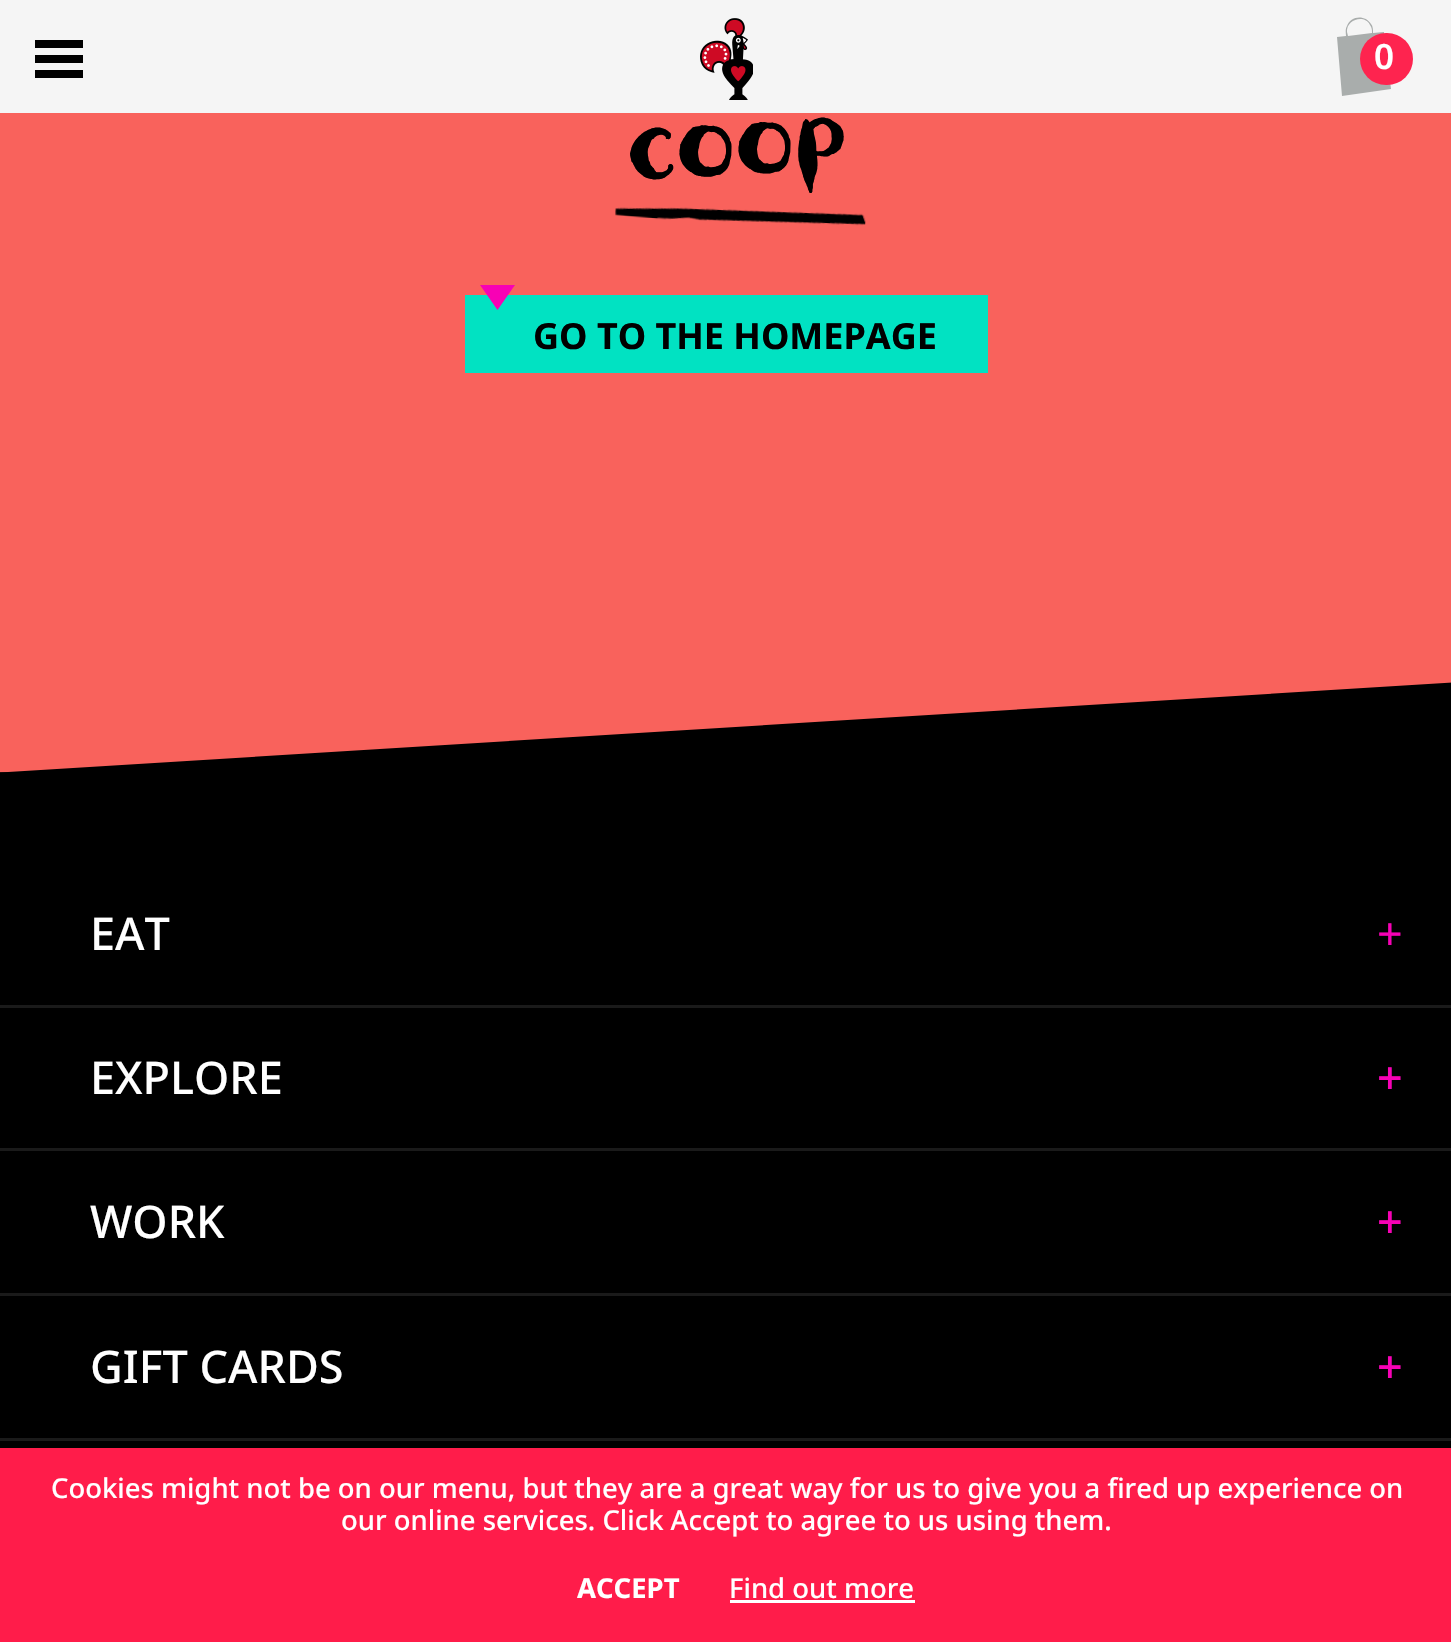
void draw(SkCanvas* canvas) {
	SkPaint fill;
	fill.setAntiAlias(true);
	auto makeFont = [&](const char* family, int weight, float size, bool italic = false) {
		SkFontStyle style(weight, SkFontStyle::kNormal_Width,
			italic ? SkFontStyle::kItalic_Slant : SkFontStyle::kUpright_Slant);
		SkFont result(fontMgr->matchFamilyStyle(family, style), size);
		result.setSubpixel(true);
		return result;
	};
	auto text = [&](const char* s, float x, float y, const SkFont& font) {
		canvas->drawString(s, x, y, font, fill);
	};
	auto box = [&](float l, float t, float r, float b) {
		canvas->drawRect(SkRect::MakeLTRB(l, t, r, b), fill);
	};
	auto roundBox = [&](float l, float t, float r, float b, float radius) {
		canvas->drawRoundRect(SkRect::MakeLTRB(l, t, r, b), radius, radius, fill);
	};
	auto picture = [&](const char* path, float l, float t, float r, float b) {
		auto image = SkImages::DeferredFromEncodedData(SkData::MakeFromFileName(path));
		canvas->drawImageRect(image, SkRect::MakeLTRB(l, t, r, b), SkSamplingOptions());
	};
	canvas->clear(0xFF000000);
	fill.setColor(0xFFF5F5F5);
	box(0, 0, 1451, 113);
	fill.setColor(0xFF000000);
	box(35, 55, 83, 63);
	box(35, 40, 83, 48);
	box(35, 70, 83, 78);
	picture("image0.png", 700, 18, 753, 100);
	fill.setColor(0xFFA9ADAC);
	canvas->drawPath(SkPathBuilder().moveTo(1384, 32).lineTo(1373, 33).cubicTo(1373, 30, 1373, 26, 1371, 24).cubicTo(1365, 14, 1350, 16, 1347, 26).cubicTo(1345, 29, 1346, 33, 1346, 36).lineTo(1337, 37).lineTo(1342, 96).lineTo(1391, 89).close().moveTo(1347, 32).cubicTo(1346, 19, 1365, 14, 1370, 25).cubicTo(1372, 28, 1372, 30, 1372, 33).lineTo(1348, 36).close().detach(), fill);
	fill.setColor(0xFFFE244F);
	roundBox(1360, 33, 1413, 85, 26);
	picture("image1.png", 0, 113, 1451, 773);
	picture("image2.png", 615, 207, 866, 226);
	fill.setColor(0xFF01E2C2);
	box(465, 295, 988, 373);
	fill.setColor(0xFFF701B5);
	canvas->drawPath(SkPathBuilder().moveTo(480, 285).lineTo(515, 285).lineTo(497.5f, 310).close().detach(), fill);
	fill.setColor(0xFF1A1A1A);
	box(0, 1005, 1451, 1008);
	box(0, 1148, 1451, 1151);
	box(0, 1293, 1451, 1296);
	box(0, 1438, 1451, 1441);
	fill.setColor(0xFFFF1C4A);
	box(0, 1448, 1451, 1642);
	fill.setColor(0xFFFFFFFF);
	box(730, 1600, 915, 1603);
	auto font1 = makeFont("Noto Sans", 600, 35);
	text("0", 1374, 69, font1);
	auto font2 = makeFont("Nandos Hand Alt", 400, 105);
	fill.setColor(0xFF000000);
	canvas->save();
	canvas->rotate(-3, 627, 180);
	text("coop", 627, 180, font2);
	canvas->restore();
	auto font3 = makeFont("Noto Sans", 700, 36);
	text("GO TO THE HOMEPAGE", 533, 349, font3);
	auto font4 = makeFont("Noto Sans", 500, 45);
	fill.setColor(0xFFFFFFFF);
	text("EAT", 90, 950, font4);
	auto font5 = makeFont("Noto Sans", 400, 45);
	fill.setColor(0xFFF701B5);
	text("+", 1377, 950, font5);
	fill.setColor(0xFFFFFFFF);
	text("EXPLORE", 90, 1094, font4);
	fill.setColor(0xFFF701B5);
	text("+", 1377, 1094, font4);
	fill.setColor(0xFFFFFFFF);
	text("WORK", 90, 1238, font4);
	fill.setColor(0xFFF701B5);
	text("+", 1377, 1238, font4);
	fill.setColor(0xFFFFFFFF);
	text("GIFT CARDS", 90, 1383, font4);
	fill.setColor(0xFFF701B5);
	text("+", 1377, 1383, font4);
	auto font6 = makeFont("Noto Sans", 500, 27.45f);
	fill.setColor(0xFFFFFFFF);
	text("Cookies might not be on our menu, but they are a great way for us to give you a fired up experience on", 51, 1498, font6);
	text("our online services. Click Accept to agree to us using them.", 341, 1530, font6);
	auto font7 = makeFont("Noto Sans", 700, 27.45f);
	text("ACCEPT", 577, 1598, font7);
	text("Find out more", 729, 1598, font6);
}
